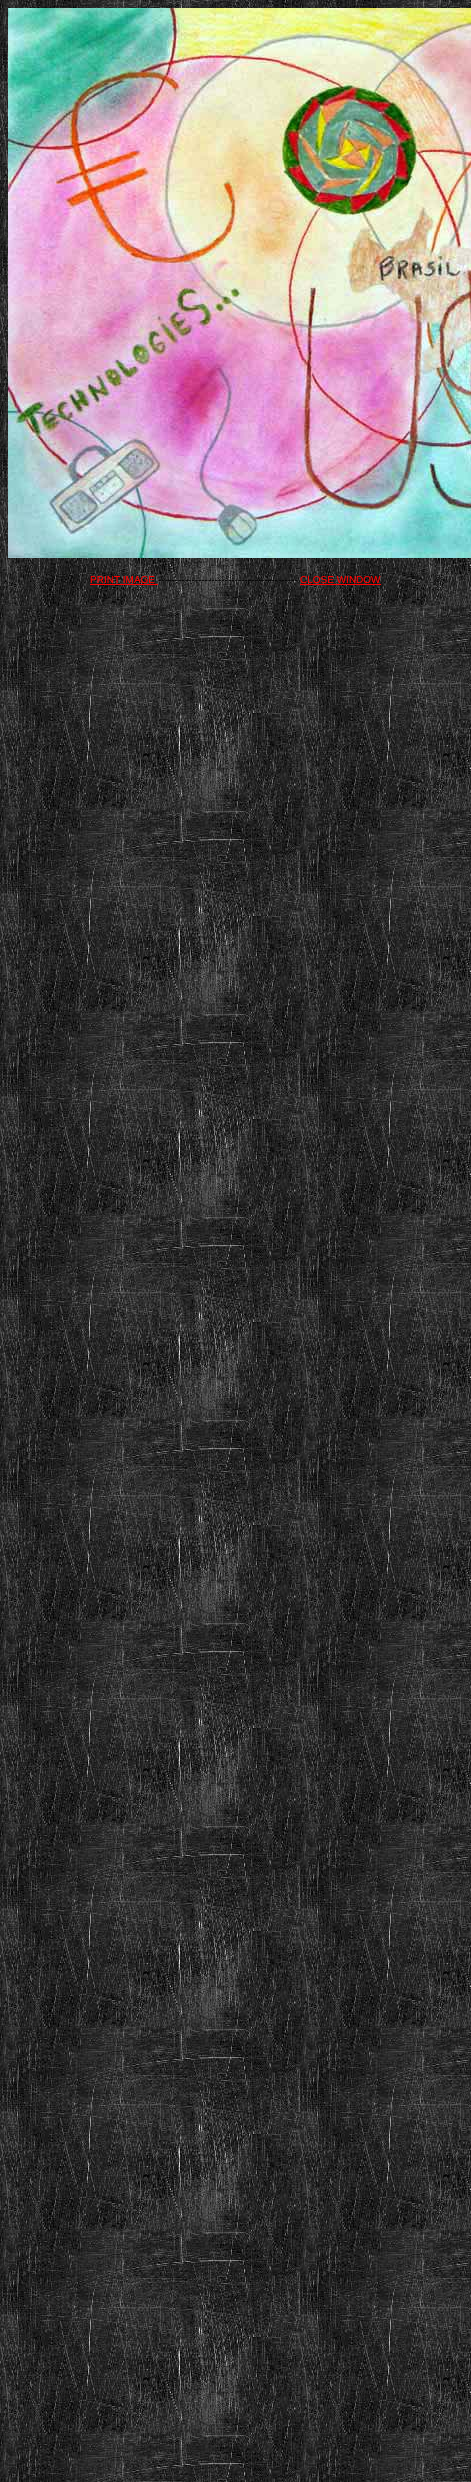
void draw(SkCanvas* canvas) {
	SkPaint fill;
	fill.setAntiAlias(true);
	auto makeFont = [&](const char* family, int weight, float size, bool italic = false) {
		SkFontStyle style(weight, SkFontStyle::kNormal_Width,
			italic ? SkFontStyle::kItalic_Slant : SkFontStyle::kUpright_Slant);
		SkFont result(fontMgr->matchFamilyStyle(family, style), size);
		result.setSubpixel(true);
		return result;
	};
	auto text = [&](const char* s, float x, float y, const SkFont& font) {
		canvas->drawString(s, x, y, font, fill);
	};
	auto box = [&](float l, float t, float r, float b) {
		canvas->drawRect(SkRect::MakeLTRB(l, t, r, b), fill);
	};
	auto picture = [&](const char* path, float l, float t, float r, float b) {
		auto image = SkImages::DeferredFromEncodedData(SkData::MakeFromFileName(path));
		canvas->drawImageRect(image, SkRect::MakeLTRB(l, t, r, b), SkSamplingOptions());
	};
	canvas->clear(0xFFFFFFFF);
	picture("image0.png", 0, 0, 471, 2482);
	picture("image1.png", 8, 8, 471, 558);
	fill.setColor(0xFFFF0000);
	box(90, 584, 158, 585);
	box(300, 584, 381, 585);
	auto font1 = makeFont("Liberation Sans", 400, 10);
	text("PRINT IMAGE", 90, 583, font1);
	fill.setColor(0xFF000000);
	text("------------------------------------------", 158, 583, font1);
	fill.setColor(0xFFFF0000);
	text("CLOSE WINDOW", 300, 583, font1);
}
